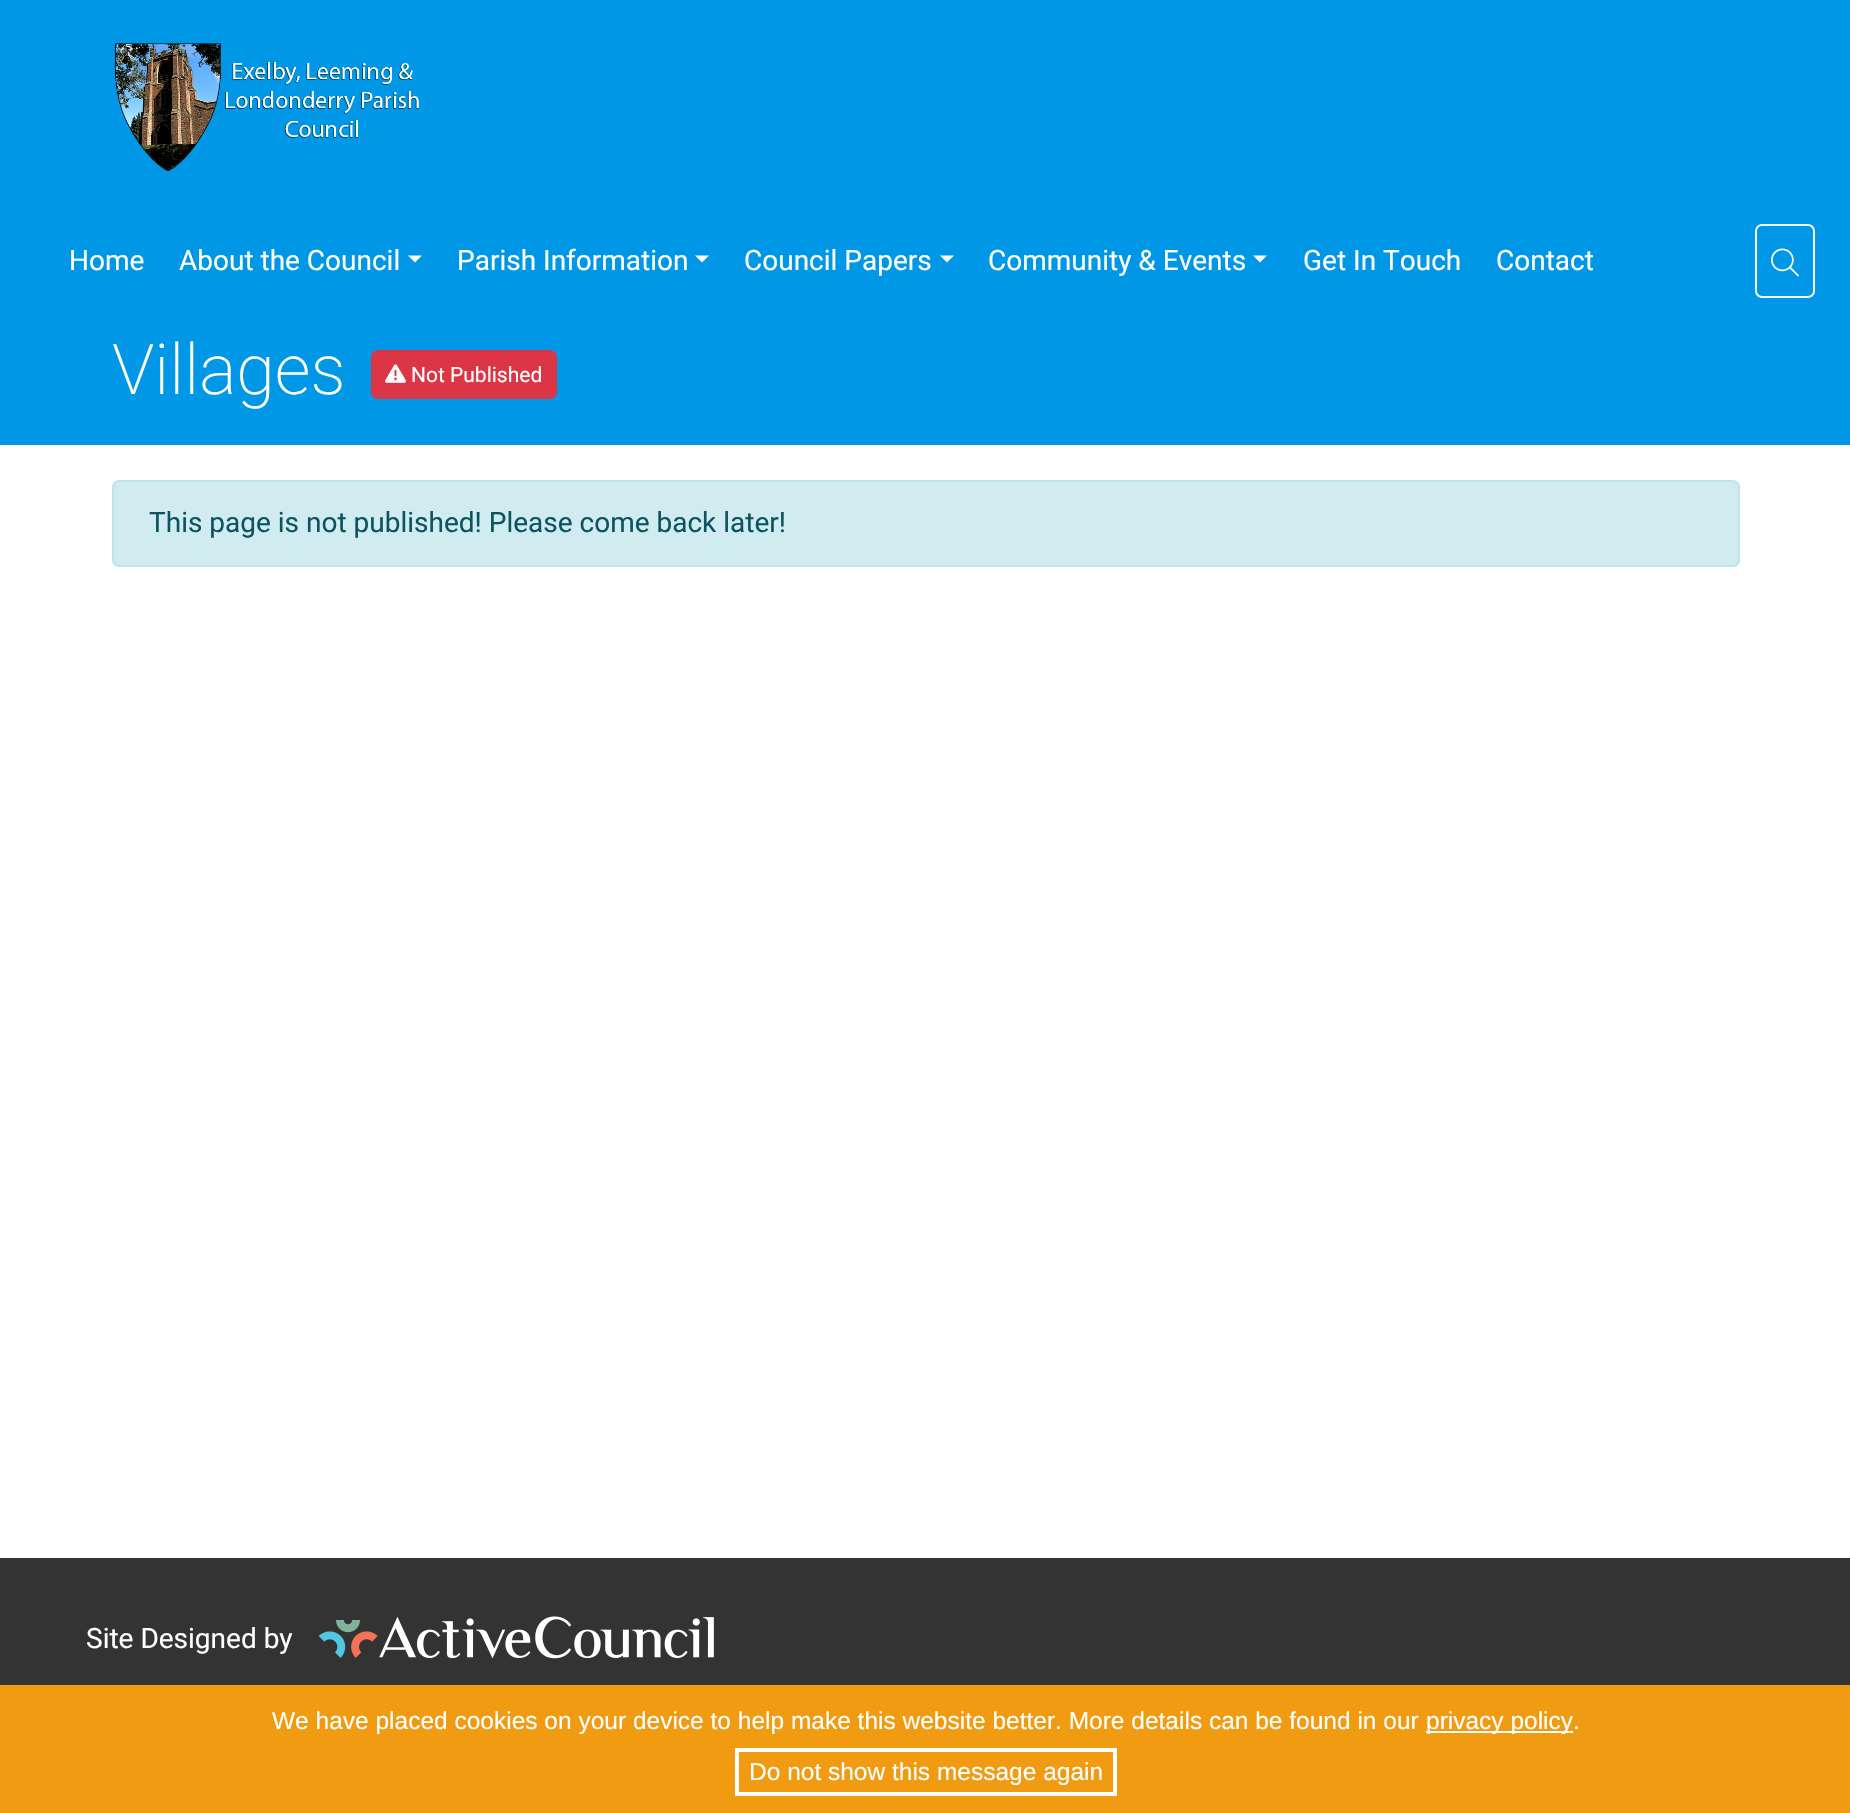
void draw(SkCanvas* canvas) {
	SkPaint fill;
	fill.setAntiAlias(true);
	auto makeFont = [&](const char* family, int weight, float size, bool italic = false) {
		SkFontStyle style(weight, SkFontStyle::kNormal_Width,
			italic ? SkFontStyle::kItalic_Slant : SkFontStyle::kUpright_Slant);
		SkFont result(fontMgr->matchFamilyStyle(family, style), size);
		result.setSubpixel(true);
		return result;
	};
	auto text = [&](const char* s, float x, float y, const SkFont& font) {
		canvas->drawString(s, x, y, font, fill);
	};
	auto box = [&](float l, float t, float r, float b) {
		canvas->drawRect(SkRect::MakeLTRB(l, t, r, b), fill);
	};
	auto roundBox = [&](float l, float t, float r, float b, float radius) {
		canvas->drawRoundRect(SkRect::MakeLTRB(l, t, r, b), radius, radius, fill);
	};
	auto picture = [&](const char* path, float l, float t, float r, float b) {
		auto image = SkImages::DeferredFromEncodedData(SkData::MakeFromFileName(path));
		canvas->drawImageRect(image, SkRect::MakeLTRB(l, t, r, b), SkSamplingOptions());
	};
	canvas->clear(0xFFFFFFFF);
	fill.setColor(0xFF0097E6);
	box(0, 0, 1850, 210);
	picture("image0.png", 112, 43, 419, 171);
	box(0, 210, 1850, 445);
	fill.setColor(0xFFFFFFFF);
	canvas->drawPath(SkPathBuilder().moveTo(408, 255.5f).lineTo(422, 255.5f).lineTo(415, 262.5f).close().detach(), fill);
	canvas->drawPath(SkPathBuilder().moveTo(695, 255.5f).lineTo(709, 255.5f).lineTo(702, 262.5f).close().detach(), fill);
	canvas->drawPath(SkPathBuilder().moveTo(940, 255.5f).lineTo(954, 255.5f).lineTo(947, 262.5f).close().detach(), fill);
	canvas->drawPath(SkPathBuilder().moveTo(1253, 255.5f).lineTo(1267, 255.5f).lineTo(1260, 262.5f).close().detach(), fill);
	fill.setStyle(SkPaint::kStroke_Style);
	fill.setStrokeWidth(2);
	fill.setColor(0xFFF8F9FA);
	canvas->drawRoundRect(SkRect::MakeLTRB(1756, 225, 1814, 297), 6, 6, fill);
	picture("image1.png", 1771, 248, 1799, 277);
	fill.setStyle(SkPaint::kFill_Style);
	fill.setColor(0xFFDC3545);
	roundBox(371, 350, 557, 399, 7);
	picture("image2.png", 385, 364, 406, 383);
	fill.setColor(0xFFD1ECF1);
	canvas->drawRoundRect(SkRect::MakeLTRB(113, 481, 1739, 566), 6, 6, fill);
	fill.setStyle(SkPaint::kStroke_Style);
	fill.setColor(0xFFBEE5EB);
	canvas->drawRoundRect(SkRect::MakeLTRB(113, 481, 1739, 566), 6, 6, fill);
	fill.setStyle(SkPaint::kFill_Style);
	fill.setColor(0xFF333333);
	box(0, 1558, 1850, 1813);
	picture("image3.png", 318, 1616, 714, 1659);
	fill.setColor(0xFF6FABFE);
	box(179, 1748, 735, 1750);
	fill.setColor(0xFCF39C12);
	box(0, 1685, 1850, 1813);
	fill.setColor(0xFFFDFDFD);
	box(1426, 1731, 1573, 1733);
	fill.setStyle(SkPaint::kStroke_Style);
	fill.setStrokeWidth(4);
	fill.setColor(0xFFFFFEFD);
	canvas->drawRect(SkRect::MakeLTRB(737, 1750, 1115, 1794), fill);
	auto font1 = makeFont("Roboto", 400, 28);
	fill.setStyle(SkPaint::kFill_Style);
	fill.setColor(0xFFFFFFFF);
	text("Home", 69, 270, font1);
	text("About the Council", 179, 270, font1);
	text("Parish Information", 457, 270, font1);
	text("Council Papers", 744, 270, font1);
	text("Community & Events", 988, 270, font1);
	text("Get In Touch", 1303, 270, font1);
	text("Contact", 1496, 270, font1);
	auto font2 = makeFont("Roboto", 200, 70);
	text("Villages", 112, 394, font2);
	auto font3 = makeFont("Roboto", 400, 21);
	text("Not Published", 411, 382, font3);
	fill.setColor(0xFF0C5460);
	text("This page is not published! Please come back later!", 149, 532, font1);
	fill.setColor(0xFFFFFFFF);
	text("Site Designed by", 86, 1648, font1);
	auto font4 = makeFont("Liberation Sans", 400, 24.5f);
	text("We have placed cookies on your device to help make this website better. More details can be found in our", 272, 1729, font4);
	text("privacy policy.", 1426, 1729, font4);
	text("Do not show this message again", 749, 1780, font4);
}
